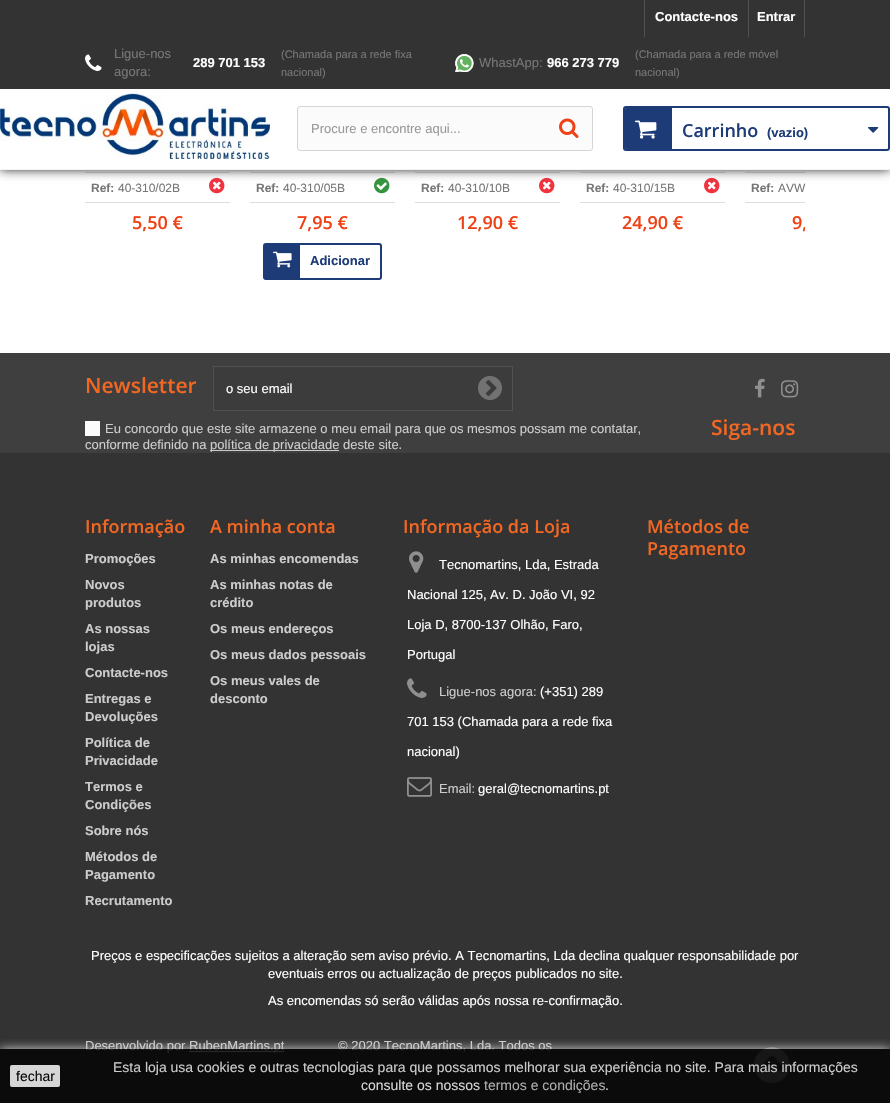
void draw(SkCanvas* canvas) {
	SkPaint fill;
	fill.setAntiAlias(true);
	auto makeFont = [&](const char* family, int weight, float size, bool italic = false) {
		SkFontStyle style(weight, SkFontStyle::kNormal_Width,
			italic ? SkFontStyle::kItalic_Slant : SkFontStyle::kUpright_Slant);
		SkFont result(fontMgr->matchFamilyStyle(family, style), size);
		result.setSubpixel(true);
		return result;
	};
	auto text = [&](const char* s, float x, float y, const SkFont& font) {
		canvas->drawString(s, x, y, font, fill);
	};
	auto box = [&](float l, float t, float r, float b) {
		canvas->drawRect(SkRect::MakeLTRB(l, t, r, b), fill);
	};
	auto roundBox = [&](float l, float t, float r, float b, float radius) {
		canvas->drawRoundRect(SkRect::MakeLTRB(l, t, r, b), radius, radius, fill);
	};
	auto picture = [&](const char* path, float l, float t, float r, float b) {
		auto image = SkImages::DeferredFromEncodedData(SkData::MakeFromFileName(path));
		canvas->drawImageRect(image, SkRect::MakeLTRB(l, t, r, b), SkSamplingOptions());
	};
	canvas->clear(0xFFFFFFFF);
	fill.setColor(0xFFDDDDDD);
	box(85, 172, 230, 173);
	picture("image6.png", 209, 177, 225, 194);
	box(250, 172, 395, 173);
	picture("image7.png", 374, 177, 390, 194);
	box(415, 172, 560, 173);
	picture("image6.png", 539, 177, 555, 194);
	box(580, 172, 725, 173);
	picture("image6.png", 704, 177, 720, 194);
	box(745, 172, 805, 173);
	fill.setColor(0xFF333333);
	fill.setMaskFilter(SkMaskFilter::MakeBlur(kNormal_SkBlurStyle, 5));
	canvas->drawRect(SkRect::MakeLTRB(0, 89, 890, 170), fill);
	fill.setMaskFilter(nullptr);
	box(0, 0, 890, 89);
	fill.setColor(0xFF515151);
	box(644, 0, 645, 37);
	box(804, 0, 805, 37);
	box(748, 0, 749, 37);
	picture("image0.png", 85, 54, 102, 71);
	picture("image1.png", 455, 54, 474, 72);
	fill.setColor(0xFFFFFFFF);
	box(0, 89, 890, 169);
	fill.setColor(0xFFF3F3F3);
	box(0, 169, 890, 170);
	picture("image2.png", 0, 93, 270, 159);
	fill.setColor(0xFFFBFBFB);
	canvas->drawRoundRect(SkRect::MakeLTRB(297.5f, 106.5f, 592.5f, 150.5f), 2.5f, 2.5f, fill);
	fill.setStyle(SkPaint::kStroke_Style);
	fill.setStrokeWidth(1);
	fill.setColor(0xFFD6D4D4);
	canvas->drawRoundRect(SkRect::MakeLTRB(297.5f, 106.5f, 592.5f, 150.5f), 2.5f, 2.5f, fill);
	picture("image3.png", 559, 118, 579, 138);
	fill.setStrokeWidth(2);
	fill.setColor(0xFF1D3B77);
	canvas->drawRoundRect(SkRect::MakeLTRB(624, 107, 889, 150), 2, 2, fill);
	fill.setStyle(SkPaint::kFill_Style);
	canvas->drawPath(SkPathBuilder().moveTo(626, 108).lineTo(672, 108).lineTo(672, 149).lineTo(626, 149).cubicTo(625.5f, 149, 625, 148.5f, 625, 148).lineTo(625, 109).cubicTo(625, 108.5f, 625.5f, 108, 626, 108).close().detach(), fill);
	picture("image4.png", 635, 120, 657, 139);
	picture("image5.png", 868, 127, 879, 133);
	fill.setColor(0xFFDDDDDD);
	box(85, 202, 230, 203);
	box(250, 202, 395, 203);
	fill.setStyle(SkPaint::kStroke_Style);
	fill.setColor(0xFF1D3B77);
	canvas->drawRoundRect(SkRect::MakeLTRB(264, 244, 381, 279), 2, 2, fill);
	fill.setStyle(SkPaint::kFill_Style);
	box(265, 245, 300, 278);
	picture("image8.png", 273, 251, 292, 268);
	fill.setColor(0xFFDDDDDD);
	box(415, 202, 560, 203);
	box(580, 202, 725, 203);
	box(745, 202, 805, 203);
	fill.setColor(0xFF333333);
	box(0, 453, 890, 1103);
	fill.setColor(0xFF3F3F3F);
	box(0, 353, 890, 453);
	fill.setColor(0xFF3C3C3C);
	canvas->drawRect(SkRect::MakeLTRB(213.5f, 366.5f, 512.5f, 410.5f), fill);
	fill.setStyle(SkPaint::kStroke_Style);
	fill.setStrokeWidth(1);
	fill.setColor(0xFF515151);
	canvas->drawRect(SkRect::MakeLTRB(213.5f, 366.5f, 512.5f, 410.5f), fill);
	picture("image9.png", 478, 376, 502, 400);
	fill.setStyle(SkPaint::kFill_Style);
	fill.setColor(0xFFFBFBFB);
	box(85, 421, 100, 436);
	fill.setColor(0xFFCCCCCC);
	box(210, 450, 339, 451);
	picture("image10.png", 755, 378, 765, 398);
	picture("image11.png", 781, 380, 799, 398);
	picture("image12.png", 409, 551, 424, 573);
	picture("image13.png", 407, 678, 427, 698);
	picture("image14.png", 407, 777, 432, 797);
	picture("image15.png", 754, 1047, 790, 1083);
	box(189, 1051, 284, 1052);
	canvas->save();
	canvas->clipRect(SkRect::MakeLTRB(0, 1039, 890, 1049));
	fill.setColor(0xCCFFFFFF);
	fill.setMaskFilter(SkMaskFilter::MakeBlur(kNormal_SkBlurStyle, 5));
	canvas->drawRect(SkRect::MakeLTRB(0, 1049, 890, 1103), fill);
	fill.setMaskFilter(nullptr);
	canvas->restore();
	auto font1 = makeFont("Liberation Sans", 700, 13);
	fill.setColor(0xFFFFFFFF);
	text("Contacte-nos", 655, 21, font1);
	text("Entrar", 757, 21, font1);
	auto font2 = makeFont("Liberation Sans", 400, 13);
	fill.setColor(0xFF777777);
	text("Ligue-nos", 114, 58, font2);
	text("agora:", 114, 76, font2);
	fill.setColor(0xFFFFFFFF);
	text("289 701 153", 193, 67, font1);
	auto font3 = makeFont("Liberation Sans", 400, 11);
	fill.setColor(0xFF777777);
	text("(Chamada para a rede fixa", 281, 58, font3);
	text("nacional)", 281, 76, font3);
	text("WhastApp:", 479, 67, font2);
	fill.setColor(0xFFFFFFFF);
	text("966 273 779", 547, 67, font1);
	fill.setColor(0xFF777777);
	text("(Chamada para a rede móvel", 635, 58, font3);
	text("nacional)", 635, 76, font3);
	fill.setColor(0xFF999999);
	text("Procure e encontre aqui...", 311, 133, font2);
	auto font4 = makeFont("Open Sans", 600, 18);
	fill.setColor(0xFF1D3B77);
	text("Carrinho", 682, 137, font4);
	text("(vazio)", 767, 137, font1);
	auto font5 = makeFont("Liberation Sans", 700, 12);
	fill.setColor(0xFF777777);
	text("Ref:", 91, 192, font5);
	auto font6 = makeFont("Liberation Sans", 400, 12);
	text("40-310/02B", 118, 192, font6);
	fill.setColor(0xFFEF4115);
	text("5,50 €", 132, 229, font4);
	fill.setColor(0xFF777777);
	text("Ref:", 256, 192, font5);
	text("40-310/05B", 283, 192, font6);
	fill.setColor(0xFFEF4115);
	text("7,95 €", 297, 229, font4);
	fill.setColor(0xFF1D3B77);
	text("Adicionar", 310, 265, font1);
	fill.setColor(0xFF777777);
	text("Ref:", 421, 192, font5);
	text("40-310/10B", 448, 192, font6);
	fill.setColor(0xFFEF4115);
	text("12,90 €", 457, 229, font4);
	fill.setColor(0xFF777777);
	text("Ref:", 586, 192, font5);
	text("40-310/15B", 613, 192, font6);
	fill.setColor(0xFFEF4115);
	text("24,90 €", 622, 229, font4);
	fill.setColor(0xFF777777);
	text("Ref:", 751, 192, font5);
	text("AVW", 778, 192, font6);
	canvas->save();
	canvas->clipRect(SkRect::MakeLTRB(85, 0, 805, 293));
	fill.setColor(0xFFEF4115);
	text("9,", 792, 229, font4);
	canvas->restore();
	auto font7 = makeFont("Open Sans", 600, 21);
	fill.setColor(0xFFF26722);
	text("Newsletter", 85, 393, font7);
	fill.setColor(0xFFFFFFFF);
	text("o seu email", 226, 393, font2);
	fill.setColor(0xFFCCCCCC);
	text("Eu concordo que este site armazene o meu email para que os mesmos possam me contatar,", 105, 433, font2);
	text("conforme definido na", 85, 449, font2);
	text("política de privacidade deste site.", 210, 449, font2);
	fill.setColor(0xFFF26722);
	text("Siga-nos", 711, 435, font7);
	text("Informação", 85, 533, font4);
	fill.setColor(0xFFCCCCCC);
	text("Promoções", 85, 563, font1);
	text("Novos", 85, 589, font1);
	text("produtos", 85, 607, font1);
	text("As nossas", 85, 633, font1);
	text("lojas", 85, 651, font1);
	text("Contacte-nos", 85, 677, font1);
	text("Entregas e", 85, 703, font1);
	text("Devoluções", 85, 721, font1);
	text("Política de", 85, 747, font1);
	text("Privacidade", 85, 765, font1);
	text("Termos e", 85, 791, font1);
	text("Condições", 85, 809, font1);
	text("Sobre nós", 85, 835, font1);
	text("Métodos de", 85, 861, font1);
	text("Pagamento", 85, 879, font1);
	text("Recrutamento", 85, 905, font1);
	fill.setColor(0xFFF26722);
	text("A minha conta", 210, 533, font4);
	fill.setColor(0xFFCCCCCC);
	text("As minhas encomendas", 210, 563, font1);
	text("As minhas notas de", 210, 589, font1);
	text("crédito", 210, 607, font1);
	text("Os meus endereços", 210, 633, font1);
	text("Os meus dados pessoais", 210, 659, font1);
	text("Os meus vales de", 210, 685, font1);
	text("desconto", 210, 703, font1);
	fill.setColor(0xFFF26722);
	text("Informação da Loja", 403, 533, font4);
	fill.setColor(0xFFFFFFFF);
	text("Tecnomartins, Lda, Estrada", 439, 569, font2);
	text("Nacional 125, Av. D. João VI, 92", 407, 599, font2);
	text("Loja D, 8700-137 Olhão, Faro,", 407, 629, font2);
	text("Portugal", 407, 659, font2);
	fill.setColor(0xFFCCCCCC);
	text("Ligue-nos agora:", 439, 696, font2);
	fill.setColor(0xFFFFFFFF);
	text("(+351) 289", 540, 696, font2);
	text("701 153 (Chamada para a rede fixa", 407, 726, font2);
	text("nacional)", 407, 756, font2);
	fill.setColor(0xFFCCCCCC);
	text("Email:", 439, 793, font2);
	fill.setColor(0xFFFFFFFF);
	text("geral@tecnomartins.pt", 478, 793, font2);
	fill.setColor(0xFFF26722);
	text("Métodos de", 647, 533, font4);
	text("Pagamento", 647, 555, font4);
	fill.setColor(0xFFFFFFFF);
	text("Preços e especificações sujeitos a alteração sem aviso prévio. A Tecnomartins, Lda declina qualquer responsabilidade por", 91, 960, font2);
	text("eventuais erros ou actualização de preços publicados no site.", 268, 978, font2);
	text("As encomendas só serão válidas após nossa re-confirmação.", 268, 1005, font2);
	fill.setColor(0xFFCCCCCC);
	text("Desenvolvido por", 85, 1050, font2);
	text("RubenMartins.pt", 189, 1050, font2);
	text("© 2020 TecnoMartins, Lda. Todos os", 338, 1050, font2);
	fill.setColor(0xCC000000);
	box(0, 1049, 890, 1103);
	auto font8 = makeFont("Liberation Sans", 400, 14);
	fill.setColor(0xFFD6D6D6);
	text(".", 605, 1090, font8);
	fill.setColor(0xFFADADAD);
	text("termos e condições", 484, 1090, font8);
	fill.setColor(0xFFD6D6D6);
	text("consulte os nossos", 361, 1090, font8);
	fill.setColor(0xFFCCCCCC);
	text("Esta loja usa cookies e outras tecnologias para que possamos melhorar sua experiência no site. Para mais informações", 113, 1072, font8);
	fill.setColor(0xFFD6D6D6);
	roundBox(10, 1065, 60, 1087, 2);
	fill.setColor(0xFF0A0A0A);
	text("fechar", 16, 1081, font8);
}
